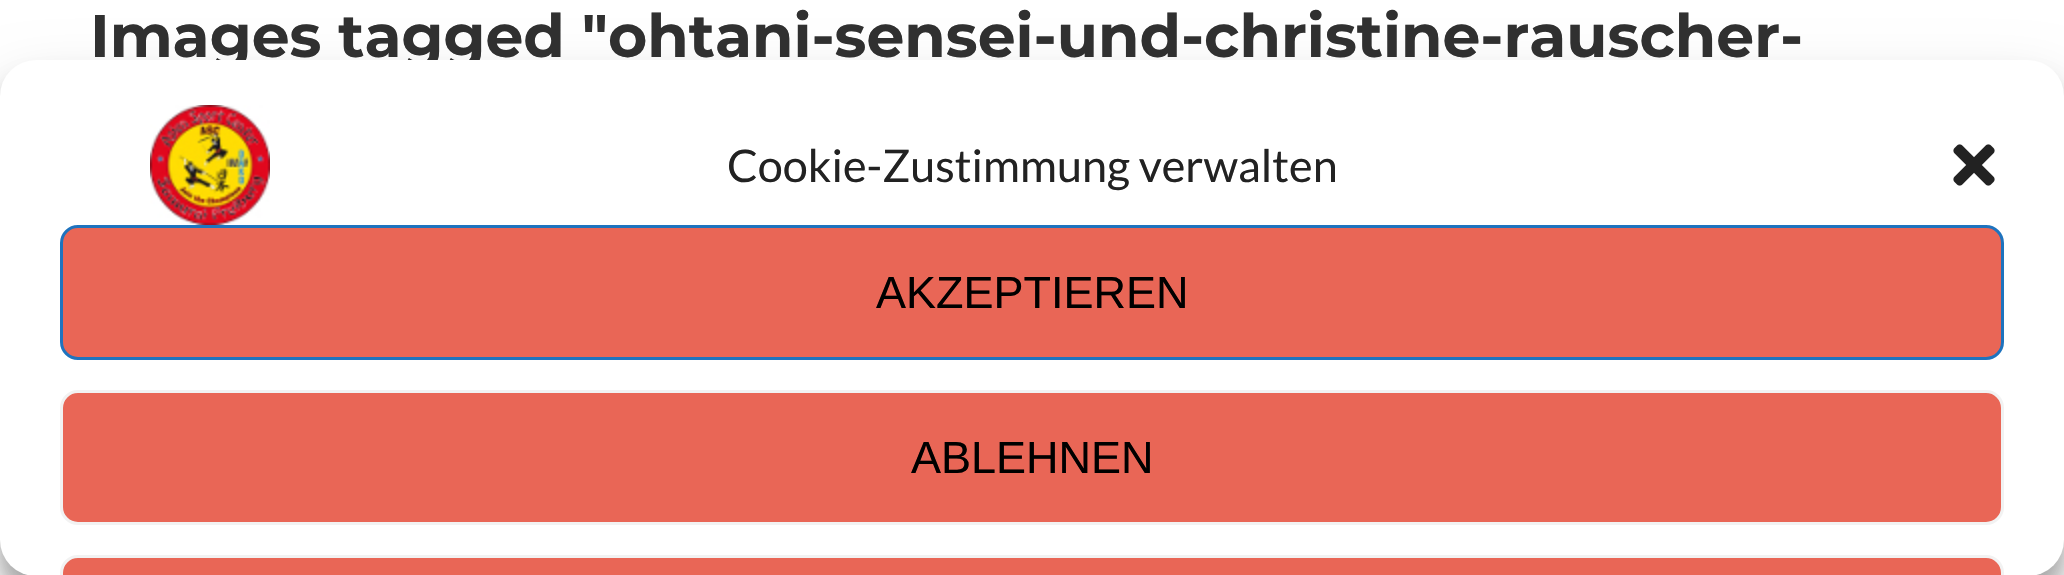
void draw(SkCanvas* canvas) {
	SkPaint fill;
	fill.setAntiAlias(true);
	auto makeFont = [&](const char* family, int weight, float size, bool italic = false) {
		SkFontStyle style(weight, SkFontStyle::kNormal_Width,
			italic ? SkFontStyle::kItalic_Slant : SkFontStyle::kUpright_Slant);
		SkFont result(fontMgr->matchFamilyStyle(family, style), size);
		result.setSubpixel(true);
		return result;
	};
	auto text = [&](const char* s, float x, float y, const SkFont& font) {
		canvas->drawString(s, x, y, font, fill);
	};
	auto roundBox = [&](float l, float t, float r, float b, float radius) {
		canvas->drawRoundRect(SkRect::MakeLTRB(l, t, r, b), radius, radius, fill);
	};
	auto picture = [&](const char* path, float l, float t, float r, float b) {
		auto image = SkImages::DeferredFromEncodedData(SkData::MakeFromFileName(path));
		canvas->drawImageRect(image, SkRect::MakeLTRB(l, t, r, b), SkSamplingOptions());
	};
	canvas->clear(0xFFFFFFFF);
	fill.setColor(0x3B000000);
	fill.setMaskFilter(SkMaskFilter::MakeBlur(kNormal_SkBlurStyle, 9));
	canvas->drawRoundRect(SkRect::MakeLTRB(0, 78, 2064, 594), 36, 36, fill);
	fill.setMaskFilter(nullptr);
	fill.setColor(0x30000000);
	fill.setMaskFilter(SkMaskFilter::MakeBlur(kNormal_SkBlurStyle, 30));
	canvas->drawRoundRect(SkRect::MakeLTRB(0, 90, 2064, 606), 36, 36, fill);
	fill.setMaskFilter(nullptr);
	auto font1 = makeFont("Montserrat", 100, 60);
	fill.setColor(0xFF303030);
	text("Images tagged \"ohtani-sensei-und-christine-rauscher-", 90, 57, font1);
	fill.setColor(0xFFFFFFFF);
	roundBox(0, 60, 2064, 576, 36);
	picture("image0.png", 150, 105, 270, 225);
	auto font2 = makeFont("Lato", 400, 45);
	fill.setColor(0xFF222222);
	text("Cookie-Zustimmung verwalten", 727, 182, font2);
	picture("image1.png", 1953, 144, 1995, 186);
	fill.setColor(0xFFE96656);
	canvas->drawRoundRect(SkRect::MakeLTRB(61.5f, 226.5f, 2002.5f, 358.5f), 16.5f, 16.5f, fill);
	fill.setStyle(SkPaint::kStroke_Style);
	fill.setStrokeWidth(3);
	fill.setColor(0xFF1E73BE);
	canvas->drawRoundRect(SkRect::MakeLTRB(61.5f, 226.5f, 2002.5f, 358.5f), 16.5f, 16.5f, fill);
	auto font3 = makeFont("Liberation Sans", 400, 45);
	fill.setStyle(SkPaint::kFill_Style);
	fill.setColor(0xFF000000);
	text("AKZEPTIEREN", 876, 308, font3);
	fill.setColor(0xFFE96656);
	canvas->drawRoundRect(SkRect::MakeLTRB(61.5f, 391.5f, 2002.5f, 523.5f), 16.5f, 16.5f, fill);
	fill.setStyle(SkPaint::kStroke_Style);
	fill.setColor(0xFFF2F2F2);
	canvas->drawRoundRect(SkRect::MakeLTRB(61.5f, 391.5f, 2002.5f, 523.5f), 16.5f, 16.5f, fill);
	fill.setStyle(SkPaint::kFill_Style);
	fill.setColor(0xFF000000);
	text("ABLEHNEN", 911, 473, font3);
	fill.setColor(0xFFE96656);
	canvas->drawRoundRect(SkRect::MakeLTRB(61.5f, 556.5f, 2002.5f, 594.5f), 16.5f, 16.5f, fill);
	fill.setStyle(SkPaint::kStroke_Style);
	fill.setColor(0xFFF2F2F2);
	canvas->drawRoundRect(SkRect::MakeLTRB(61.5f, 556.5f, 2002.5f, 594.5f), 16.5f, 16.5f, fill);
}
